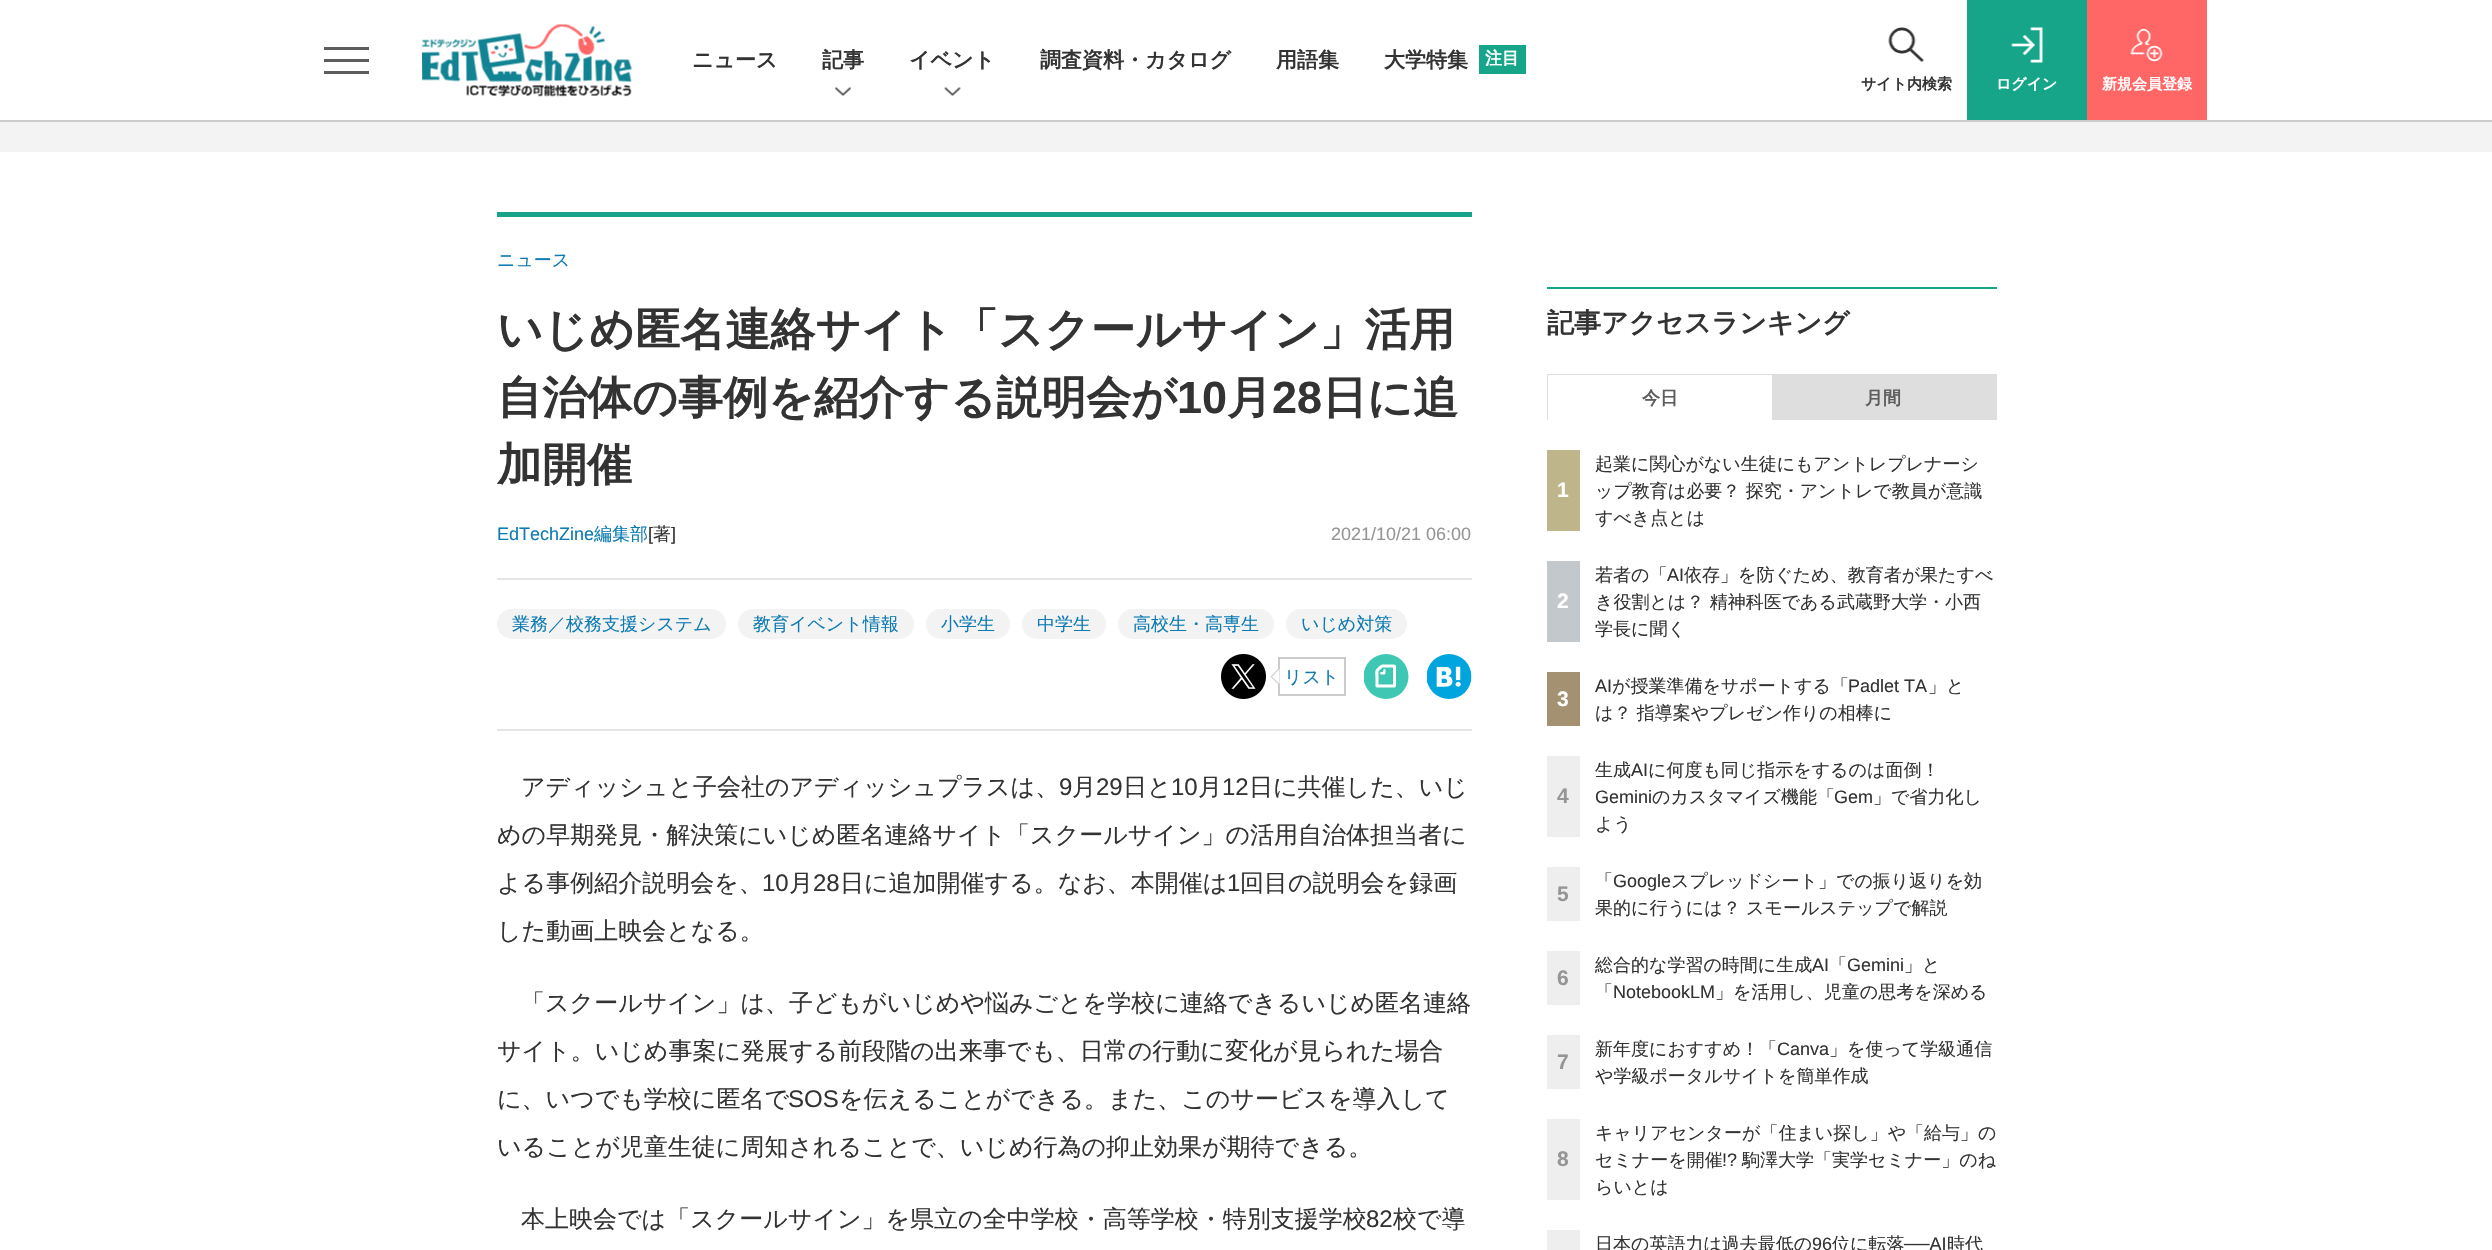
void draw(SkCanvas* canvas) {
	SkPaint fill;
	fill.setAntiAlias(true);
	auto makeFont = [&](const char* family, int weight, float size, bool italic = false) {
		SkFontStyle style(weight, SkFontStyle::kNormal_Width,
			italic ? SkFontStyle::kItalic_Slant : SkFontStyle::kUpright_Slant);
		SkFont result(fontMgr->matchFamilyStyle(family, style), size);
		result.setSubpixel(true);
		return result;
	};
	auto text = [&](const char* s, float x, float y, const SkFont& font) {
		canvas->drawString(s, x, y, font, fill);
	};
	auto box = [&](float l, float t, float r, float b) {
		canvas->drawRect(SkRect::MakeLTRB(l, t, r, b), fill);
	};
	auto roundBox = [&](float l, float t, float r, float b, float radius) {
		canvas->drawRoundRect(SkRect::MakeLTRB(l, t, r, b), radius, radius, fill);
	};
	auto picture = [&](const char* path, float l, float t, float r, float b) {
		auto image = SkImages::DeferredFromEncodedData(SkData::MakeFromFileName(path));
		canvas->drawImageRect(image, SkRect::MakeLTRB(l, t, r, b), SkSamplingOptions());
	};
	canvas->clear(0xFFFFFFFF);
	fill.setColor(0xFFCCCCCC);
	box(0, 120, 2492, 122);
	fill.setColor(0xFF5D5D5D);
	box(324, 59, 369, 62);
	box(324, 47, 369, 50);
	box(324, 71, 369, 74);
	picture("image0.png", 422, 24, 632, 97);
	picture("image1.png", 834, 87, 852, 96);
	picture("image2.png", 944, 87, 961, 96);
	fill.setColor(0xFF16A588);
	box(1479, 45, 1526, 74);
	picture("image3.png", 1888, 27, 1924, 62);
	box(1967, 0, 2087, 120);
	picture("image4.png", 2011, 27, 2043, 63);
	fill.setColor(0xFFFF6666);
	box(2087, 0, 2207, 120);
	picture("image5.png", 2130, 28, 2163, 62);
	fill.setColor(0xFFF3F3F3);
	box(0, 122, 2492, 152);
	fill.setColor(0xFF16A588);
	box(497, 212, 1472, 217);
	fill.setColor(0xFFE5E5E5);
	box(497, 729, 1472, 731);
	box(497, 578, 1472, 580);
	fill.setColor(0xFFF3F3F3);
	roundBox(497, 609, 726, 639, 15);
	roundBox(738, 609, 914, 639, 15);
	roundBox(926, 609, 1010, 639, 15);
	roundBox(1022, 609, 1106, 639, 15);
	roundBox(1118, 609, 1274, 639, 15);
	roundBox(1286, 609, 1407, 639, 15);
	picture("image6.png", 1221, 654, 1266, 699);
	fill.setStyle(SkPaint::kStroke_Style);
	fill.setStrokeWidth(2);
	fill.setColor(0xFFCCCCCC);
	canvas->drawRect(SkRect::MakeLTRB(1279, 658, 1345, 695), fill);
	fill.setStyle(SkPaint::kFill_Style);
	canvas->drawPath(SkPathBuilder().moveTo(1279.5f, 667.5f).lineTo(1279.5f, 685.5f).lineTo(1270.5f, 676.5f).close().detach(), fill);
	fill.setColor(0xFFFFFFFF);
	canvas->drawPath(SkPathBuilder().moveTo(1279.5f, 669).lineTo(1279.5f, 684).lineTo(1272, 676.5f).close().detach(), fill);
	canvas->save();
	canvas->clipRect(SkRect::MakeLTRB(1364, 654, 1409, 699));
	fill.setColor(0xFF3EC8B3);
	canvas->drawCircle(1386, 676.5f, 22.5f, fill);
	canvas->restore();
	fill.setColor(0xFFFFFFFF);
	canvas->drawPath(SkPathBuilder(SkPathFillType::kEvenOdd).moveTo(1377, 687.5f).lineTo(1391.5f, 687.5f).cubicTo(1396.5f, 687.5f, 1396, 687.5f, 1396, 682.5f).lineTo(1396, 669.5f).cubicTo(1396, 665, 1396.5f, 664.5f, 1392, 664.5f).lineTo(1382.5f, 664.5f).cubicTo(1381, 664.5f, 1380, 665.5f, 1379, 666.5f).cubicTo(1374, 671.5f, 1375.5f, 670, 1375.5f, 678.5f).lineTo(1375.5f, 683.5f).cubicTo(1375.5f, 684.5f, 1375, 687.5f, 1377, 687.5f).close().moveTo(1382.5f, 667.5f).lineTo(1393, 667.5f).lineTo(1393, 684.5f).lineTo(1378.5f, 684.5f).lineTo(1378.5f, 671).close().moveTo(1381.5f, 674.5f).cubicTo(1385, 674.5f, 1385.5f, 675, 1385.5f, 671.5f).lineTo(1385.5f, 669.5f).cubicTo(1385, 668.5f, 1383.5f, 669, 1383.5f, 670).lineTo(1383, 672).lineTo(1381, 672).cubicTo(1379.5f, 673, 1380, 674.5f, 1381.5f, 674.5f).close().detach(), fill);
	picture("image7.png", 1427, 654, 1472, 699);
	fill.setColor(0xFF16A588);
	box(1547, 287, 1997, 289);
	fill.setColor(0xFFDEDEDE);
	box(1547, 374, 1997, 420);
	fill.setColor(0xFFFFFFFF);
	box(1548, 375, 1772, 420);
	fill.setColor(0xFFBFB58B);
	box(1547, 450, 1580, 531);
	fill.setColor(0xFFC2C8CC);
	box(1547, 561, 1580, 642);
	fill.setColor(0xFFA39171);
	box(1547, 672, 1580, 726);
	fill.setColor(0xFFEEEEEE);
	box(1547, 756, 1580, 837);
	box(1547, 867, 1580, 921);
	box(1547, 951, 1580, 1005);
	box(1547, 1035, 1580, 1089);
	box(1547, 1119, 1580, 1200);
	box(1547, 1230, 1580, 1250);
	auto font1 = makeFont("WenQuanYi Zen Hei", 700, 21);
	fill.setColor(0xFF333333);
	text("ニュース", 692, 67, font1);
	text("記事", 822, 67, font1);
	text("イベント", 909, 67, font1);
	text("調査資料・カタログ", 1040, 67, font1);
	text("用語集", 1276, 67, font1);
	text("大学特集", 1384, 67, font1);
	auto font2 = makeFont("WenQuanYi Zen Hei", 700, 17);
	fill.setColor(0xFFFFFFFF);
	text("注目", 1485, 64, font2);
	auto font3 = makeFont("WenQuanYi Zen Hei", 700, 15);
	fill.setColor(0xFF333333);
	text("サイト内検索", 1861, 89, font3);
	fill.setColor(0xFFFFFFFF);
	text("ログイン", 1996, 89, font3);
	text("新規会員登録", 2102, 89, font3);
	auto font4 = makeFont("WenQuanYi Zen Hei", 500, 18);
	fill.setColor(0xFF0E7BB3);
	text("ニュース", 497, 266, font4);
	auto font5 = makeFont("WenQuanYi Zen Hei", 700, 45);
	fill.setColor(0xFF333333);
	text("いじめ匿名連絡サイト「スクールサイン」活用", 497, 345, font5);
	text("自治体の事例を紹介する説明会が", 497, 413, font5);
	auto font6 = makeFont("Liberation Sans", 700, 45);
	text("10", 1177, 413, font6);
	text("月", 1227, 413, font5);
	text("28", 1272, 413, font6);
	text("日に追", 1322, 413, font5);
	text("加開催", 497, 480, font5);
	auto font7 = makeFont("Liberation Sans", 400, 18);
	fill.setColor(0xFF0E7BB3);
	text("EdTechZine", 497, 540, font7);
	text("編集部", 594, 540, font4);
	fill.setColor(0xFF333333);
	text("[", 648, 540, font7);
	text("著", 653, 540, font4);
	text("]", 671, 540, font7);
	fill.setColor(0xFF959595);
	text("2021/10/21 06:00", 1331, 540, font7);
	fill.setColor(0xFF0E7BB3);
	text("業務／校務支援システム", 512, 630, font4);
	text("教育イベント情報", 753, 630, font4);
	text("小学生", 941, 630, font4);
	text("中学生", 1037, 630, font4);
	text("高校生・高専生", 1133, 630, font4);
	text("いじめ対策", 1301, 630, font4);
	text("リスト", 1284, 683, font4);
	auto font8 = makeFont("WenQuanYi Zen Hei", 500, 24);
	fill.setColor(0xFF333333);
	text("アディッシュと子会社のアディッシュプラスは、", 521, 795, font8);
	auto font9 = makeFont("Liberation Sans", 400, 24);
	text("9", 1059, 795, font9);
	text("月", 1072, 795, font8);
	text("29", 1096, 795, font9);
	text("日と", 1123, 795, font8);
	text("10", 1171, 795, font9);
	text("月", 1198, 795, font8);
	text("12", 1222, 795, font9);
	text("日に共催した、いじ", 1249, 795, font8);
	text("めの早期発見・解決策にいじめ匿名連絡サイト「スクールサイン」の活用自治体担当者に", 497, 843, font8);
	text("よる事例紹介説明会を、", 497, 891, font8);
	text("10", 762, 891, font9);
	text("月", 789, 891, font8);
	text("28", 813, 891, font9);
	text("日に追加開催する。なお、本開催は", 840, 891, font8);
	text("1", 1227, 891, font9);
	text("回目の説明会を録画", 1240, 891, font8);
	text("した動画上映会となる。", 497, 939, font8);
	text("「スクールサイン」は、子どもがいじめや悩みごとを学校に連絡できるいじめ匿名連絡", 521, 1011, font8);
	text("サイト。いじめ事案に発展する前段階の出来事でも、日常の行動に変化が見られた場合", 497, 1059, font8);
	text("に、いつでも学校に匿名で", 497, 1107, font8);
	text("SOS", 788, 1107, font9);
	text("を伝えることができる。また、このサービスを導入して", 839, 1107, font8);
	text("いることが児童生徒に周知されることで、いじめ行為の抑止効果が期待できる。", 497, 1155, font8);
	text("本上映会では「スクールサイン」を県立の全中学校・高等学校・特別支援学校", 521, 1227, font8);
	text("82", 1366, 1227, font9);
	text("校で導", 1393, 1227, font8);
	auto font10 = makeFont("WenQuanYi Zen Hei", 700, 27);
	text("記事アクセスランキング", 1547, 332, font10);
	auto font11 = makeFont("WenQuanYi Zen Hei", 700, 18);
	fill.setColor(0xFF5D5D5D);
	text("今日", 1642, 404, font11);
	text("月間", 1865, 404, font11);
	auto font12 = makeFont("Liberation Sans", 700, 21);
	fill.setColor(0xFFFFFFFF);
	text("1", 1557, 497, font12);
	fill.setColor(0xFF333333);
	text("起業に関心がない生徒にもアントレプレナーシ", 1595, 470, font4);
	text("ップ教育は必要？ 探究・アントレで教員が意識", 1595, 497, font4);
	text("すべき点とは", 1595, 524, font4);
	fill.setColor(0xFFFFFFFF);
	text("2", 1557, 608, font12);
	fill.setColor(0xFF333333);
	text("若者の「", 1595, 581, font4);
	text("AI", 1667, 581, font7);
	text("依存」を防ぐため、教育者が果たすべ", 1684, 581, font4);
	text("き役割とは？ 精神科医である武蔵野大学・小西", 1595, 608, font4);
	text("学長に聞く", 1595, 635, font4);
	fill.setColor(0xFFFFFFFF);
	text("3", 1557, 706, font12);
	fill.setColor(0xFF333333);
	text("AI", 1595, 692, font7);
	text("が授業準備をサポートする「", 1612, 692, font4);
	text("Padlet TA", 1848, 692, font7);
	text("」と", 1928, 692, font4);
	text("は？ 指導案やプレゼン作りの相棒に", 1595, 719, font4);
	fill.setColor(0xFF959595);
	text("4", 1557, 803, font12);
	fill.setColor(0xFF333333);
	text("生成", 1595, 776, font4);
	text("AI", 1631, 776, font7);
	text("に何度も同じ指示をするのは面倒！", 1648, 776, font4);
	text("Gemini", 1595, 803, font7);
	text("のカスタマイズ機能「", 1652, 803, font4);
	text("Gem", 1834, 803, font7);
	text("」で省力化し", 1873, 803, font4);
	text("よう", 1595, 830, font4);
	fill.setColor(0xFF959595);
	text("5", 1557, 901, font12);
	fill.setColor(0xFF333333);
	text("「", 1595, 887, font4);
	text("Google", 1613, 887, font7);
	text("スプレッドシート」での振り返りを効", 1671, 887, font4);
	text("果的に行うには？ スモールステップで解説", 1595, 914, font4);
	fill.setColor(0xFF959595);
	text("6", 1557, 985, font12);
	fill.setColor(0xFF333333);
	text("総合的な学習の時間に生成", 1595, 971, font4);
	text("AI", 1812, 971, font7);
	text("「", 1829, 971, font4);
	text("Gemini", 1847, 971, font7);
	text("」と", 1904, 971, font4);
	text("「", 1595, 998, font4);
	text("NotebookLM", 1613, 998, font7);
	text("」を活用し、児童の思考を深める", 1715, 998, font4);
	fill.setColor(0xFF959595);
	text("7", 1557, 1069, font12);
	fill.setColor(0xFF333333);
	text("新年度におすすめ！「", 1595, 1055, font4);
	text("Canva", 1777, 1055, font7);
	text("」を使って学級通信", 1829, 1055, font4);
	text("や学級ポータルサイトを簡単作成", 1595, 1082, font4);
	fill.setColor(0xFF959595);
	text("8", 1557, 1166, font12);
	fill.setColor(0xFF333333);
	text("キャリアセンターが「住まい探し」や「給与」の", 1595, 1139, font4);
	text("セミナーを開催", 1595, 1166, font4);
	text("!?", 1722, 1166, font7);
	text("駒澤大学「実学セミナー」のね", 1742, 1166, font4);
	text("らいとは", 1595, 1193, font4);
	text("日本の英語力は過去最低の", 1595, 1250, font4);
	text("96", 1812, 1250, font7);
	text("位に転落", 1832, 1250, font4);
	text("──AI", 1904, 1250, font7);
	text("時代", 1947, 1250, font4);
}
